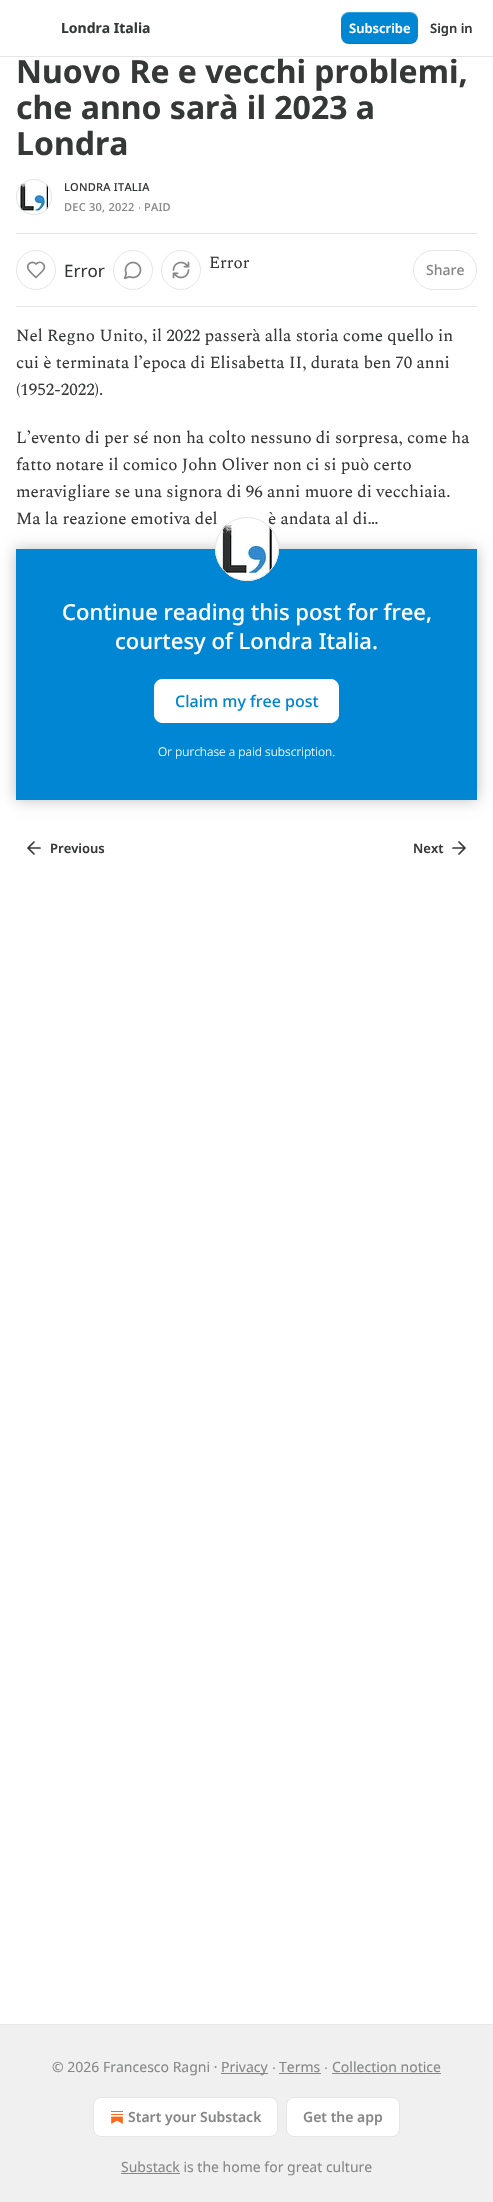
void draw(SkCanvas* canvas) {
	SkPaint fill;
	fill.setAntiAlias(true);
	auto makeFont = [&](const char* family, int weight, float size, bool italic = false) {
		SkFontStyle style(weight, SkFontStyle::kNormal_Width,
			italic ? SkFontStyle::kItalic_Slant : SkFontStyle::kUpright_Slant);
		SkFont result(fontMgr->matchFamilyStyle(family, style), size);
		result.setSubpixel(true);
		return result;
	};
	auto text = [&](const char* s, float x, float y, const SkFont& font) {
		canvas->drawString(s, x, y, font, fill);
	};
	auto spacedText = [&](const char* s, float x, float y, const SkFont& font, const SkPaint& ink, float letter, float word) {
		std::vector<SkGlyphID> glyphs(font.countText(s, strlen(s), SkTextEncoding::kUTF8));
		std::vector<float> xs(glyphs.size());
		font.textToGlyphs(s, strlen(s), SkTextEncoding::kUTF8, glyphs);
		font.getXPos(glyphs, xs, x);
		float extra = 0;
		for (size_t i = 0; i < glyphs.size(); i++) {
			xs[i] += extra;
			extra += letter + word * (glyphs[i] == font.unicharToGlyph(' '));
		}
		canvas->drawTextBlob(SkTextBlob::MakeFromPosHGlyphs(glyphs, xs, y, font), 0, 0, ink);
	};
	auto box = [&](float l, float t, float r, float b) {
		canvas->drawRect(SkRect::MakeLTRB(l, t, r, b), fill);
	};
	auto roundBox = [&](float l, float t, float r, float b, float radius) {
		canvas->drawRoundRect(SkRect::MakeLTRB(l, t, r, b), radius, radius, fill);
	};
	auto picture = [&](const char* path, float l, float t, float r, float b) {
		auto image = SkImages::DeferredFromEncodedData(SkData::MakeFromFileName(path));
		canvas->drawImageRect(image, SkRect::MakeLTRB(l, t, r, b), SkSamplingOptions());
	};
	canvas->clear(0xFFFFFFFF);
	fill.setColor(0xFFE6E6E6);
	box(0, 56, 493, 57);
	fill.setColor(0xFF0086D3);
	roundBox(341, 12, 418, 44, 8);
	fill.setColor(0x1A000000);
	canvas->drawPath(SkPathBuilder().moveTo(341, 35).cubicTo(341, 46, 351, 44, 359, 44).lineTo(400, 44).cubicTo(408, 44, 418, 46, 418, 35).cubicTo(418, 39, 414, 43, 410, 43).lineTo(349, 43).cubicTo(345, 43, 341, 39, 341, 35).close().detach(), fill);
	fill.setColor(0x33FFFFFF);
	canvas->drawPath(SkPathBuilder().moveTo(349, 13).lineTo(410, 13).cubicTo(414, 13, 418, 17, 418, 21).cubicTo(418, 10, 408, 12, 400, 12).lineTo(359, 12).cubicTo(351, 12, 341, 10, 341, 21).cubicTo(341, 17, 345, 13, 349, 13).close().detach(), fill);
	fill.setStyle(SkPaint::kStroke_Style);
	fill.setStrokeWidth(1);
	fill.setColor(0xFFE6E6E6);
	canvas->drawCircle(34, 197, 17.5f, fill);
	picture("image0.png", 16, 179, 52, 215);
	canvas->drawCircle(34, 197, 17.5f, fill);
	fill.setStyle(SkPaint::kFill_Style);
	box(16, 233, 477, 234);
	box(16, 306, 477, 307);
	fill.setStyle(SkPaint::kStroke_Style);
	canvas->drawCircle(133, 270, 19.5f, fill);
	picture("image1.png", 123, 261, 142, 280);
	canvas->drawCircle(181, 270, 19.5f, fill);
	picture("image2.png", 172, 261, 190, 279);
	canvas->drawCircle(36, 270, 19.5f, fill);
	fill.setStrokeWidth(1.7f);
	fill.setStrokeCap(SkPaint::kRound_Cap);
	fill.setStrokeJoin(SkPaint::kRound_Join);
	fill.setColor(0xFF868787);
	canvas->drawPath(SkPathBuilder().moveTo(42, 271.5f).cubicTo(48, 265.5f, 41, 259.5f, 36, 264).cubicTo(32.5f, 260.5f, 26.5f, 263.5f, 28, 268.5f).cubicTo(29, 271.5f, 34, 275.5f, 36, 277.5f).close().detach(), fill);
	fill.setStrokeWidth(1);
	fill.setStrokeCap(SkPaint::kButt_Cap);
	fill.setStrokeJoin(SkPaint::kMiter_Join);
	fill.setColor(0xFFE6E6E6);
	canvas->drawRoundRect(SkRect::MakeLTRB(413.5f, 250.5f, 476.5f, 289.5f), 19.5f, 19.5f, fill);
	fill.setStyle(SkPaint::kFill_Style);
	fill.setColor(0xFF0086D3);
	box(16, 549, 477, 800);
	fill.setColor(0xFFFFFFFF);
	canvas->drawRoundRect(SkRect::MakeLTRB(154.5f, 679.5f, 338.5f, 722.5f), 7.5f, 7.5f, fill);
	fill.setStyle(SkPaint::kStroke_Style);
	canvas->drawRoundRect(SkRect::MakeLTRB(154.5f, 679.5f, 338.5f, 722.5f), 7.5f, 7.5f, fill);
	canvas->save();
	canvas->clipPath(SkPathBuilder(SkPathFillType::kEvenOdd).moveTo(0, 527).lineTo(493, 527).lineTo(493, 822).lineTo(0, 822).close().moveTo(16, 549).lineTo(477, 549).lineTo(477, 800).lineTo(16, 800).close().detach(), true);
	fill.setStyle(SkPaint::kFill_Style);
	fill.setColor(0x40000000);
	fill.setMaskFilter(SkMaskFilter::MakeBlur(kNormal_SkBlurStyle, 7));
	canvas->drawRect(SkRect::MakeLTRB(16, 549, 477, 800), fill);
	fill.setMaskFilter(nullptr);
	canvas->restore();
	fill.setStyle(SkPaint::kStroke_Style);
	fill.setStrokeWidth(1.7f);
	fill.setStrokeCap(SkPaint::kRound_Cap);
	fill.setStrokeJoin(SkPaint::kRound_Join);
	fill.setColor(0xFF363737);
	canvas->drawPath(SkPathBuilder().moveTo(34, 854).lineTo(28, 848).lineTo(34, 842).moveTo(40, 848).lineTo(28, 848).detach(), fill);
	canvas->drawPath(SkPathBuilder().moveTo(453, 848).lineTo(465, 848).moveTo(459, 842).lineTo(465, 848).lineTo(459, 854).detach(), fill);
	fill.setStyle(SkPaint::kFill_Style);
	fill.setColor(0xFFF0F0F0);
	box(0, 2025, 493, 2202);
	fill.setColor(0xFFE6E6E6);
	box(0, 2024, 493, 2025);
	fill.setColor(0xFF868787);
	box(221, 2073, 268, 2074);
	box(279, 2073, 321, 2074);
	box(332, 2073, 441, 2074);
	fill.setColor(0xFFFFFFFF);
	canvas->drawRoundRect(SkRect::MakeLTRB(93.5f, 2097.5f, 277.5f, 2136.5f), 7.5f, 7.5f, fill);
	fill.setStyle(SkPaint::kStroke_Style);
	fill.setStrokeWidth(1);
	fill.setStrokeCap(SkPaint::kButt_Cap);
	fill.setStrokeJoin(SkPaint::kMiter_Join);
	fill.setColor(0xFFE6E6E6);
	canvas->drawRoundRect(SkRect::MakeLTRB(93.5f, 2097.5f, 277.5f, 2136.5f), 7.5f, 7.5f, fill);
	picture("image4.png", 111, 2111, 123, 2124);
	fill.setStyle(SkPaint::kFill_Style);
	fill.setColor(0xFFFFFFFF);
	canvas->drawRoundRect(SkRect::MakeLTRB(286.5f, 2097.5f, 399.5f, 2136.5f), 7.5f, 7.5f, fill);
	fill.setStyle(SkPaint::kStroke_Style);
	fill.setColor(0xFFE6E6E6);
	canvas->drawRoundRect(SkRect::MakeLTRB(286.5f, 2097.5f, 399.5f, 2136.5f), 7.5f, 7.5f, fill);
	fill.setStyle(SkPaint::kFill_Style);
	fill.setColor(0xFF868787);
	box(121, 2173, 180, 2174);
	auto font1 = makeFont("Noto Sans", 700, 14);
	fill.setColor(0xFF363737);
	text("Londra Italia", 61, 33, font1);
	auto font2 = makeFont("Noto Sans", 600, 13);
	fill.setColor(0xFFFFFFFF);
	text("Subscribe", 349, 33, font2);
	fill.setColor(0xFF363737);
	text("Sign in", 430, 33, font2);
	auto font3 = makeFont("Noto Sans", 700, 32);
	text("Nuovo Re e vecchi problemi,", 16, 83, font3);
	text("che anno sarà il 2023 a", 16, 119, font3);
	text("Londra", 16, 155, font3);
	auto font4 = makeFont("Noto Sans", 500, 11);
	spacedText("LONDRA ITALIA", 64, 191, font4, fill, 0.25f, 0);
	fill.setColor(0xFF868787);
	spacedText("DEC 30, 2022", 64, 211, font4, fill, 0.25f, 0);
	auto font5 = makeFont("Liberation Sans", 400, 11);
	spacedText("∙", 138, 211, font5, fill, 0.25f, 0);
	spacedText("PAID", 144, 211, font4, fill, 0.25f, 0);
	auto font6 = makeFont("Spectral", 400, 17);
	fill.setColor(0xFF363737);
	text("Error", 209, 268, font6);
	auto font7 = makeFont("Noto Sans", 400, 17);
	text("Error", 64, 277, font7);
	auto font8 = makeFont("Noto Sans", 500, 14);
	fill.setColor(0xFF868787);
	text("Share", 426, 275, font8);
	fill.setColor(0xFF363737);
	text("Nel Regno Unito, il 2022 passerà alla storia come quello in", 16, 341, font6);
	text("cui è terminata l’epoca di Elisabetta II, durata ben 70 anni", 16, 368, font6);
	text("(1952-2022).", 16, 395, font6);
	text("L’evento di per sé non ha colto nessuno di sorpresa, come ha", 16, 443, font6);
	text("fatto notare il comico John Oliver non ci si può certo", 16, 470, font6);
	text("meravigliare se una signora di 96 anni muore di vecchiaia.", 16, 497, font6);
	text("Ma la reazione emotiva del", 16, 524, font6);
	text("è andata al di…", 268, 524, font6);
	fill.setStyle(SkPaint::kStroke_Style);
	fill.setColor(0xFFE6E6E6);
	canvas->drawCircle(247, 549, 31.5f, fill);
	picture("image3.png", 215, 517, 279, 581);
	canvas->drawCircle(247, 549, 31.5f, fill);
	auto font9 = makeFont("Noto Sans", 500, 22);
	fill.setStyle(SkPaint::kFill_Style);
	fill.setColor(0xFFFFFFFF);
	text("Continue reading this post for free,", 62, 620, font9);
	text("courtesy of Londra Italia.", 115, 649, font9);
	auto font10 = makeFont("Noto Sans", 500, 16);
	fill.setColor(0xFF0086D3);
	text("Claim my free post", 175, 707, font10);
	auto font11 = makeFont("Noto Sans", 300, 12);
	fill.setColor(0xFFFFFFFF);
	text("Or purchase a paid subscription.", 158, 756, font11);
	fill.setColor(0xFF363737);
	text("Previous", 50, 853, font2);
	text("Next", 413, 853, font2);
	auto font12 = makeFont("Noto Sans", 400, 14);
	fill.setColor(0xFF868787);
	text("© 2026 Francesco Ragni ·", 52, 2072, font12);
	text("Privacy", 221, 2072, font12);
	auto font13 = makeFont("Liberation Sans", 400, 14);
	text("∙", 272, 2072, font13);
	text("Terms", 279, 2072, font12);
	text("∙", 324, 2072, font13);
	text("Collection notice", 332, 2072, font12);
	auto font14 = makeFont("Noto Sans", 600, 14);
	text("Start your Substack", 128, 2122, font14);
	text("Get the app", 303, 2122, font14);
	text("Substack is the home for great culture", 121, 2172, font12);
}
